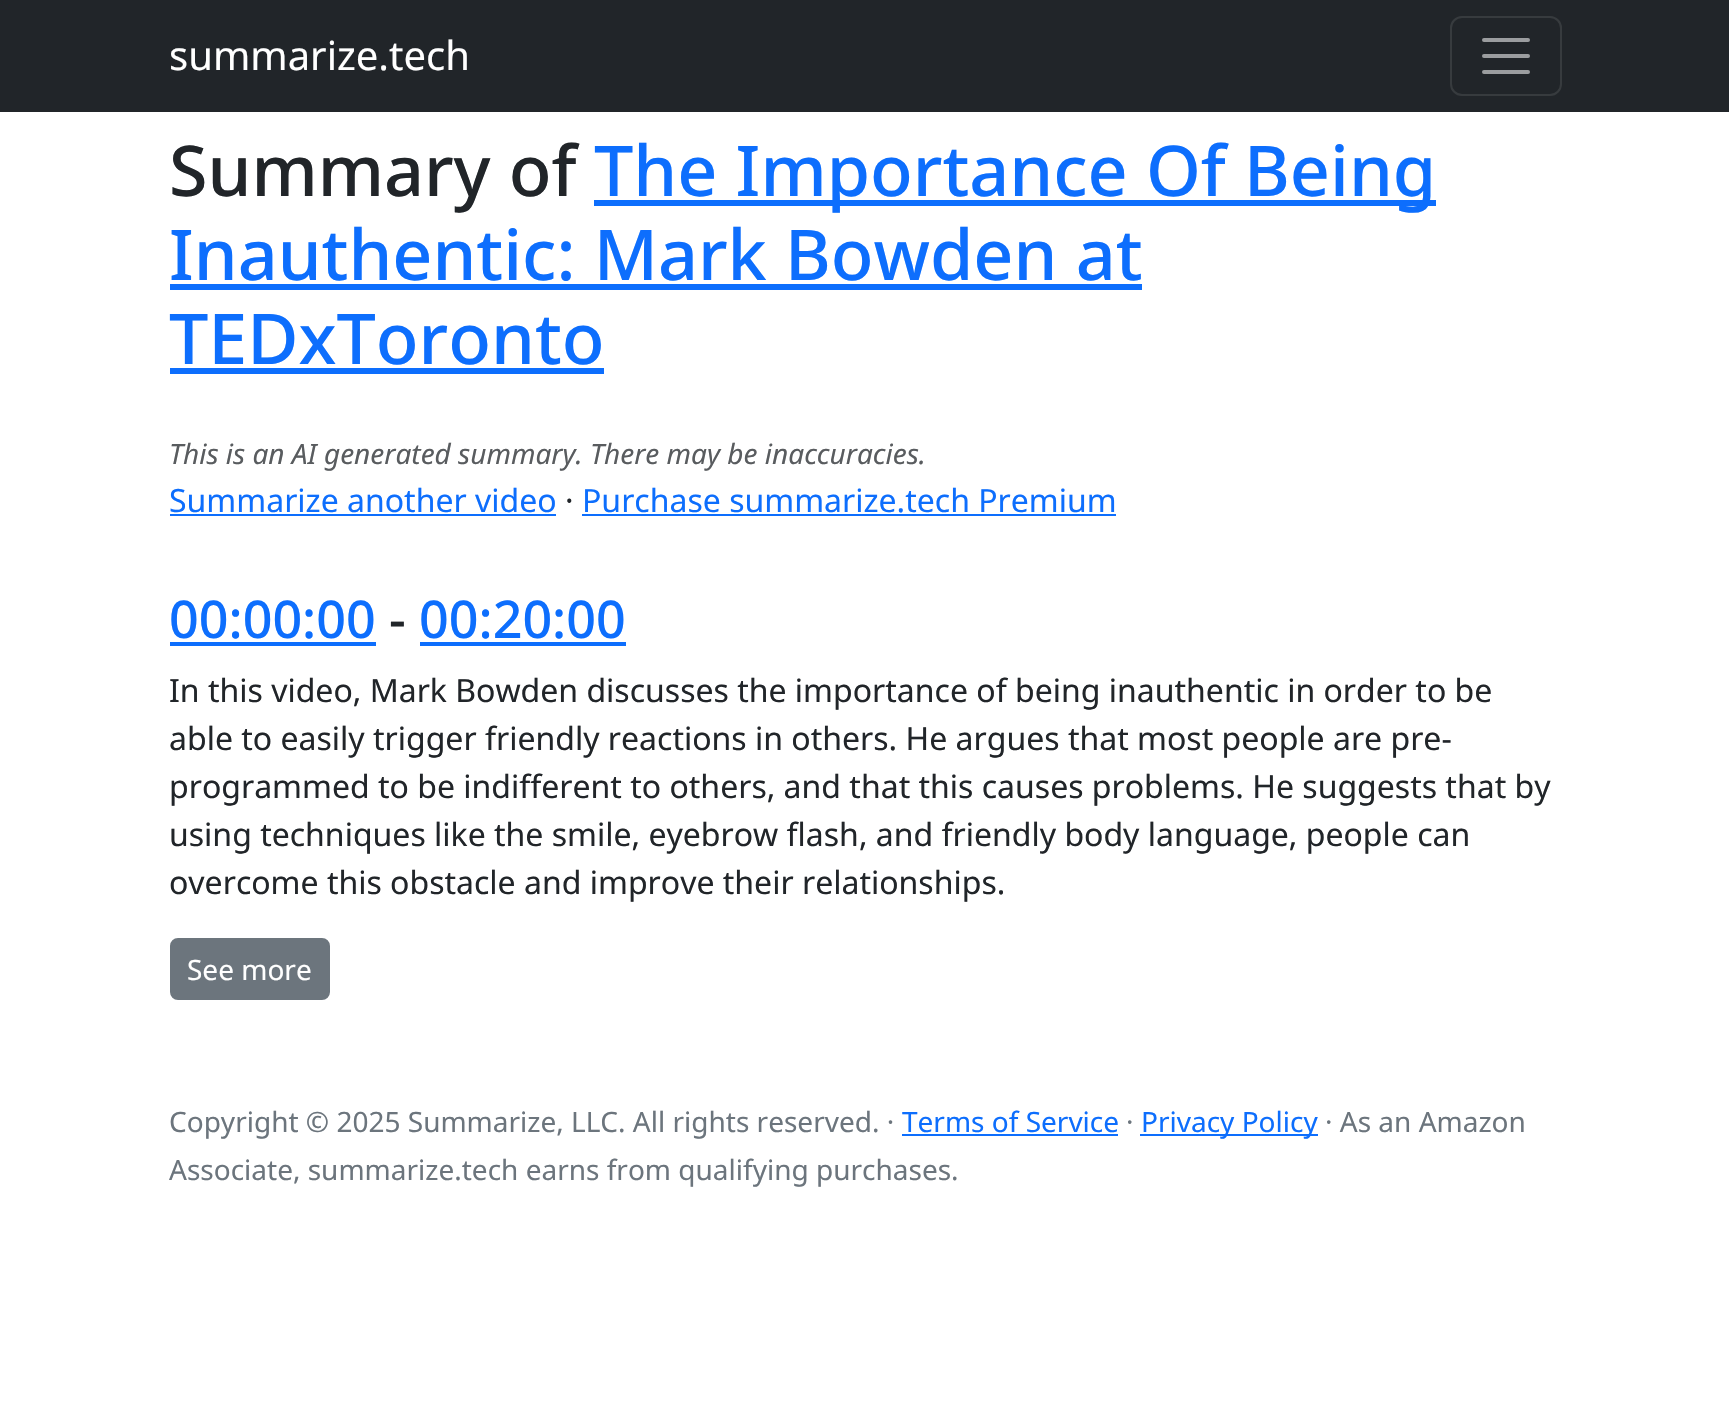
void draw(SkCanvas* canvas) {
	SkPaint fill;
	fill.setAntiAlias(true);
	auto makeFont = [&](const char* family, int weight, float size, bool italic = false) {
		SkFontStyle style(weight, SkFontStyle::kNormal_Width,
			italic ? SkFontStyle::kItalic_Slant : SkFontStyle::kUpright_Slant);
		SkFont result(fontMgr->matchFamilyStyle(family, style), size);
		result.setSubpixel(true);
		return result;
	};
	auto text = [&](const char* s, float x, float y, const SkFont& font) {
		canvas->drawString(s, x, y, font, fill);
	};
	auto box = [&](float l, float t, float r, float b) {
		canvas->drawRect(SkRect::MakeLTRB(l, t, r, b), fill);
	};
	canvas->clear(0xFFFFFFFF);
	fill.setColor(0xFF212529);
	box(0, 0, 1729, 112);
	fill.setStyle(SkPaint::kStroke_Style);
	fill.setStrokeWidth(2);
	fill.setColor(0xFF373B3E);
	canvas->drawRoundRect(SkRect::MakeLTRB(1451, 17, 1561, 95), 11, 11, fill);
	fill.setStrokeWidth(4);
	fill.setStrokeCap(SkPaint::kRound_Cap);
	fill.setColor(0xFF9B9D9F);
	canvas->drawPath(SkPathBuilder().moveTo(1484, 40).lineTo(1528, 40).moveTo(1484, 56).lineTo(1528, 56).moveTo(1484, 72).lineTo(1528, 72).detach(), fill);
	fill.setStyle(SkPaint::kFill_Style);
	fill.setColor(0xFF0D6EFD);
	box(594, 200, 1436, 206);
	box(170, 284, 1142, 290);
	box(170, 368, 604, 374);
	box(170, 514, 556, 516);
	box(582, 514, 1116, 516);
	box(170, 642, 376, 646);
	box(420, 642, 626, 646);
	fill.setColor(0xFF6C757D);
	canvas->drawRoundRect(SkRect::MakeLTRB(171, 939, 329, 999), 7, 7, fill);
	fill.setStyle(SkPaint::kStroke_Style);
	fill.setStrokeWidth(2);
	fill.setStrokeCap(SkPaint::kButt_Cap);
	canvas->drawRoundRect(SkRect::MakeLTRB(171, 939, 329, 999), 7, 7, fill);
	fill.setStyle(SkPaint::kFill_Style);
	fill.setColor(0xFF0D6EFD);
	box(902, 1134, 1118, 1136);
	box(1140, 1134, 1318, 1136);
	auto font1 = makeFont("Noto Sans", 400, 40);
	fill.setColor(0xFFFFFFFF);
	text("summarize.tech", 169, 70, font1);
	auto font2 = makeFont("Noto Sans", 500, 70);
	fill.setColor(0xFF212529);
	text("Summary of", 169, 196, font2);
	fill.setColor(0xFF0D6EFD);
	text("The Importance Of Being", 594, 196, font2);
	text("Inauthentic: Mark Bowden at", 169, 280, font2);
	text("TEDxToronto", 169, 364, font2);
	auto font3 = makeFont("Noto Sans", 400, 28, true);
	fill.setColor(0xFF595C5F);
	text("This is an AI generated summary. There may be inaccuracies.", 169, 464, font3);
	auto font4 = makeFont("Noto Sans", 400, 32);
	fill.setColor(0xFF0D6EFD);
	text("Summarize another video", 169, 512, font4);
	fill.setColor(0xFF212529);
	text("·", 565, 512, font4);
	fill.setColor(0xFF0D6EFD);
	text("Purchase summarize.tech Premium", 582, 512, font4);
	auto font5 = makeFont("Noto Sans", 500, 52);
	text("00:00:00", 169, 638, font5);
	fill.setColor(0xFF212529);
	text("-", 389, 638, font5);
	fill.setColor(0xFF0D6EFD);
	text("00:20:00", 419, 638, font5);
	fill.setColor(0xFF212529);
	text("In this video, Mark Bowden discusses the importance of being inauthentic in order to be", 169, 702, font4);
	text("able to easily trigger friendly reactions in others. He argues that most people are pre-", 169, 750, font4);
	text("programmed to be indifferent to others, and that this causes problems. He suggests that by", 169, 798, font4);
	text("using techniques like the smile, eyebrow flash, and friendly body language, people can", 169, 846, font4);
	text("overcome this obstacle and improve their relationships.", 169, 894, font4);
	auto font6 = makeFont("Noto Sans", 400, 28);
	fill.setColor(0xFFFFFFFF);
	text("See more", 187, 980, font6);
	fill.setColor(0xFF6C757D);
	text("Copyright © 2025 Summarize, LLC. All rights reserved. ·", 169, 1132, font6);
	fill.setColor(0xFF0D6EFD);
	text("Terms of Service", 902, 1132, font6);
	fill.setColor(0xFF6C757D);
	text("·", 1126, 1132, font6);
	fill.setColor(0xFF0D6EFD);
	text("Privacy Policy", 1141, 1132, font6);
	fill.setColor(0xFF6C757D);
	text("· As an Amazon", 1325, 1132, font6);
	text("Associate, summarize.tech earns from qualifying purchases.", 169, 1180, font6);
}
